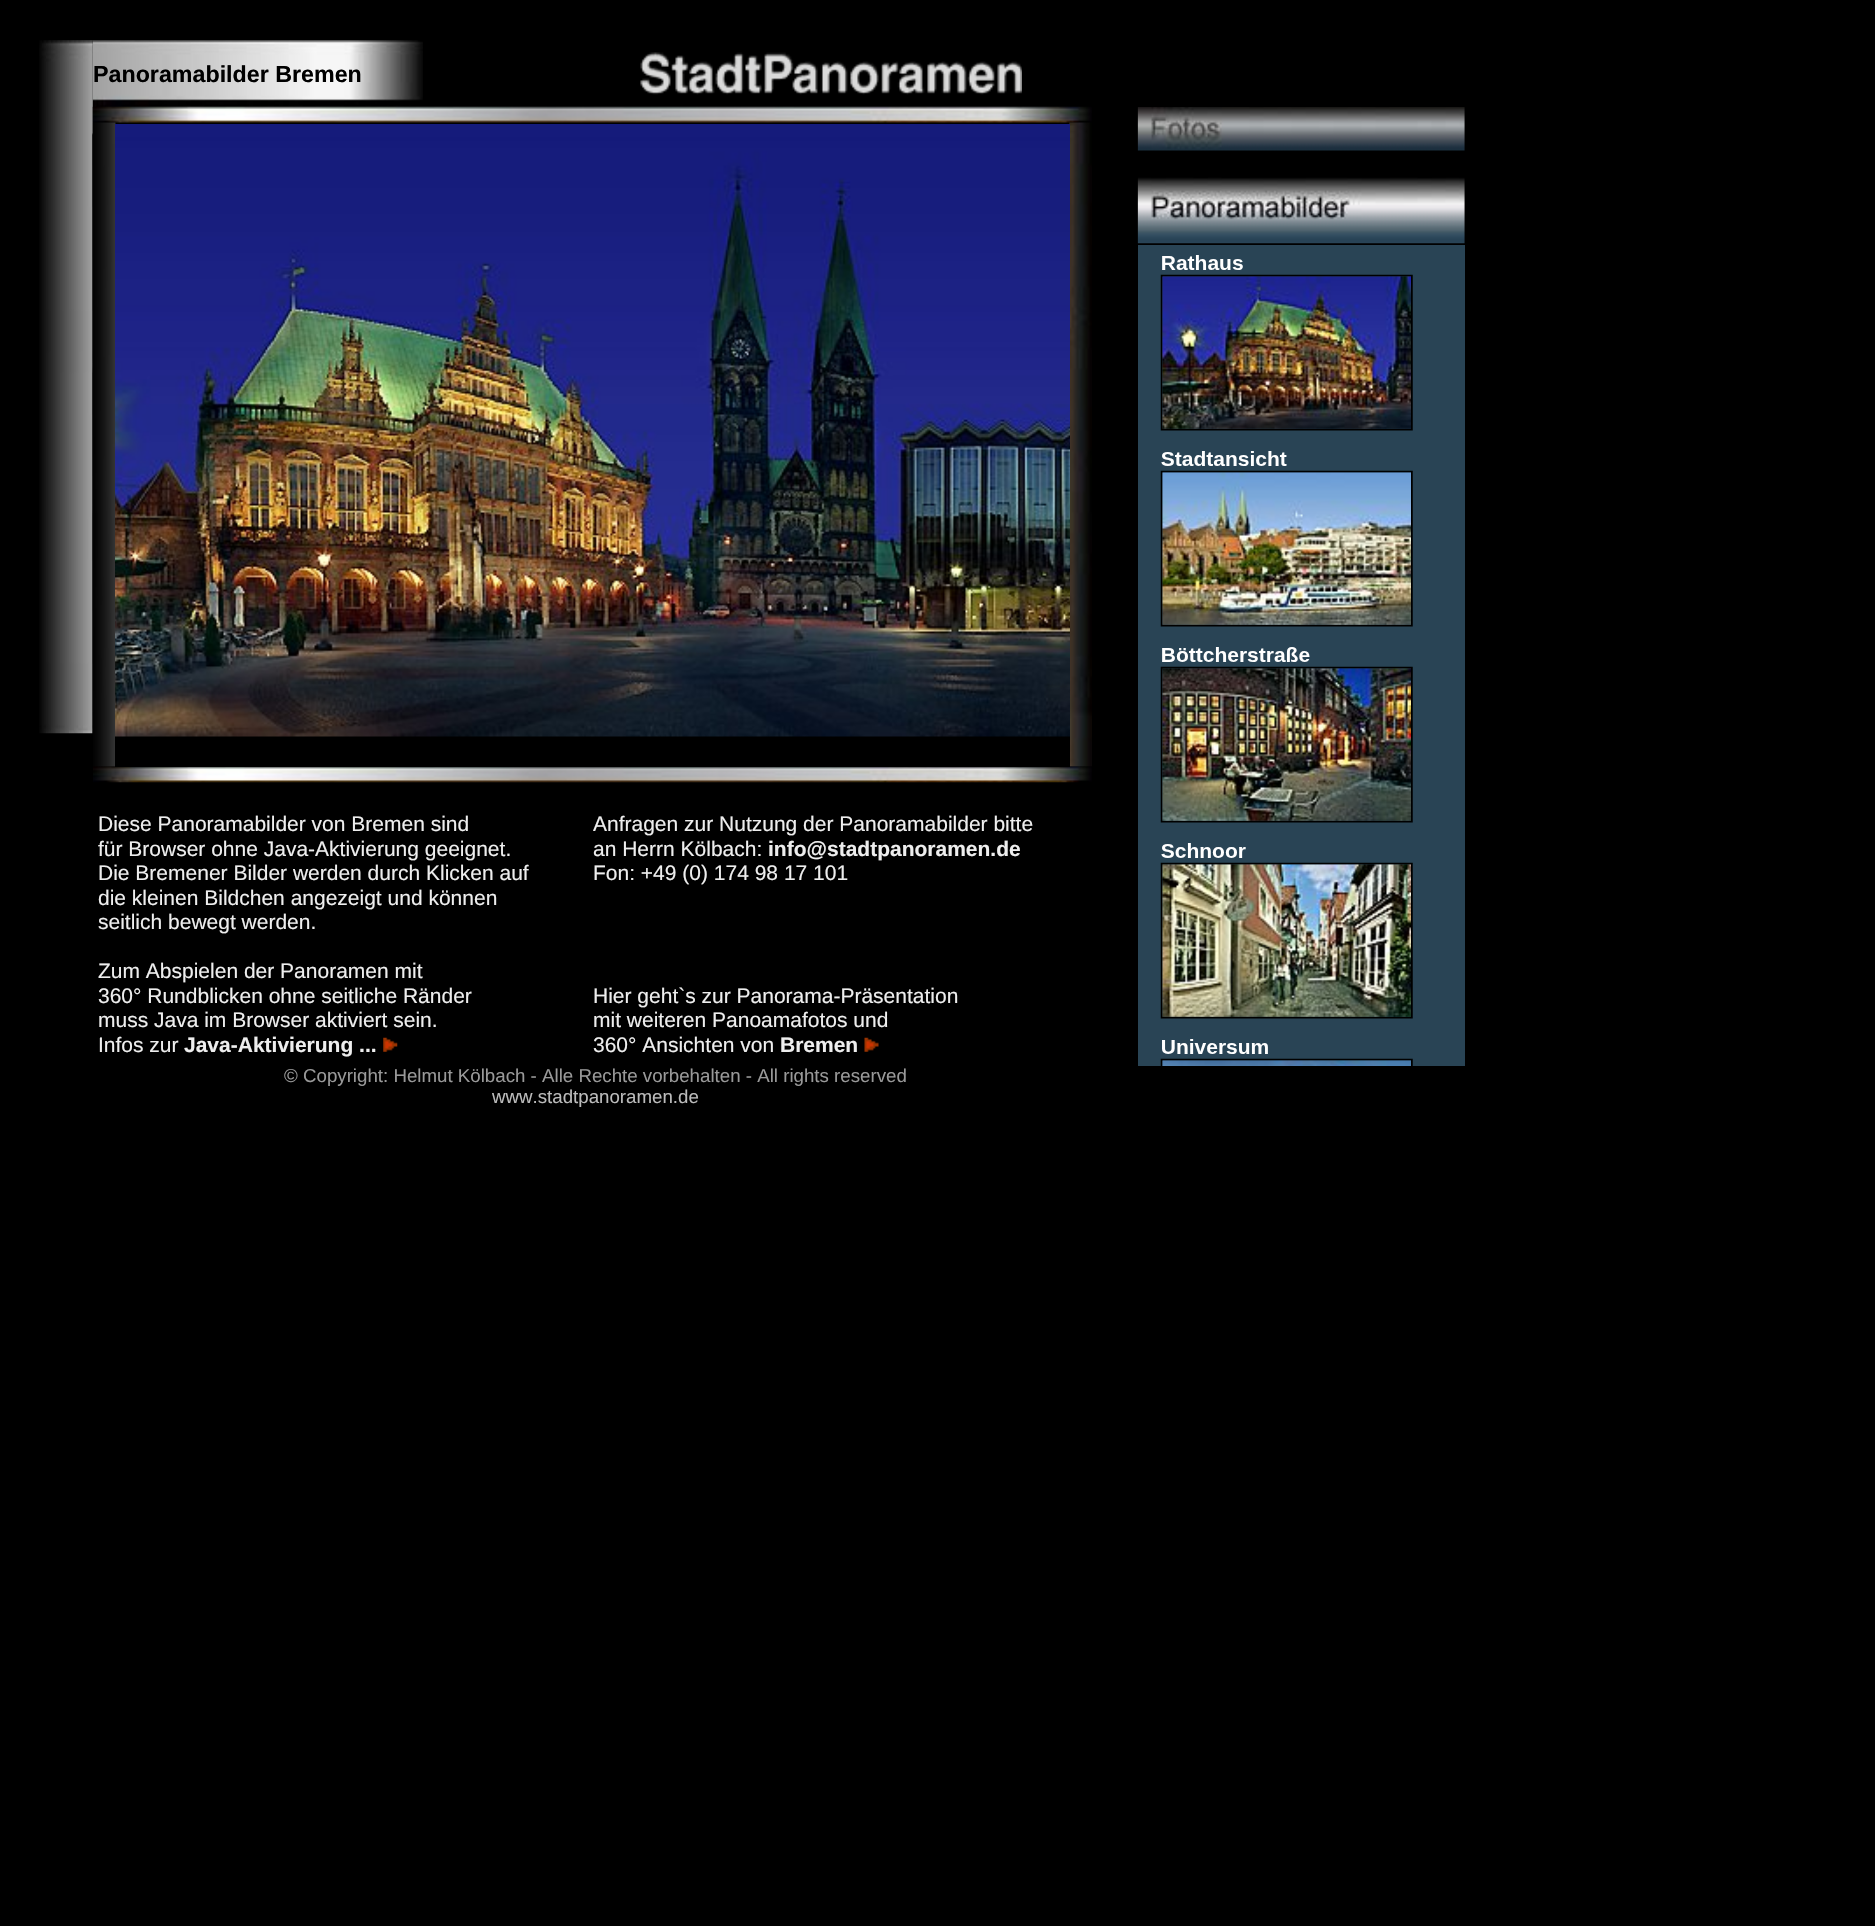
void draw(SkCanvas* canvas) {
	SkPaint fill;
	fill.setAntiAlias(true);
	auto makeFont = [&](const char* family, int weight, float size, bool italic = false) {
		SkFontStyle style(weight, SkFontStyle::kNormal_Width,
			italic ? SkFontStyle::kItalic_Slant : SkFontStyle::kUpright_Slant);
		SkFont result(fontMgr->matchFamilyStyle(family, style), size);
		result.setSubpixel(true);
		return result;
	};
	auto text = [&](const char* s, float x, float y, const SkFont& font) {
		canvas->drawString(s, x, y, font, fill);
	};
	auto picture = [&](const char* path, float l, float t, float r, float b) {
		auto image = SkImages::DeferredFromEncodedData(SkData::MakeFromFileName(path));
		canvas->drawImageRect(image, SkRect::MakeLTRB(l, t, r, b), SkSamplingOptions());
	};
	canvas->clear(0xFF000000);
	picture("image1.png", 92, 40, 423, 107);
	picture("image0.png", 39, 40, 93, 734);
	picture("image2.png", 640, 52, 1022, 95);
	picture("image3.png", 92, 106, 1092, 123);
	picture("image4.png", 1137, 107, 1465, 1066);
	picture("image5.png", 92, 122, 116, 767);
	picture("image7.png", 1069, 122, 1092, 767);
	picture("image8.png", 93, 766, 1092, 783);
	picture("image6.png", 115, 124, 1070, 767);
	picture("image9.png", 383, 1037, 398, 1052);
	picture("image10.png", 864, 1037, 879, 1052);
	auto font1 = makeFont("Liberation Sans", 700, 23.25f);
	fill.setColor(0xFF000000);
	text("Panoramabilder Bremen", 93, 82, font1);
	auto font2 = makeFont("Liberation Sans", 400, 21);
	fill.setColor(0xFFEEEEEE);
	text("Diese Panoramabilder von Bremen sind", 98, 831, font2);
	text("für Browser ohne Java-Aktivierung geeignet.", 98, 856, font2);
	text("Die Bremener Bilder werden durch Klicken auf", 98, 880, font2);
	text("die kleinen Bildchen angezeigt und können", 98, 905, font2);
	text("seitlich bewegt werden.", 98, 929, font2);
	text("Zum Abspielen der Panoramen mit", 98, 978, font2);
	text("360° Rundblicken ohne seitliche Ränder", 98, 1003, font2);
	text("muss Java im Browser aktiviert sein.", 98, 1027, font2);
	text("Infos zur", 98, 1052, font2);
	auto font3 = makeFont("Liberation Sans", 700, 21);
	text("Java-Aktivierung ...", 184, 1052, font3);
	text("Anfragen zur Nutzung der Panoramabilder bitte", 593, 831, font2);
	text("an Herrn Kölbach:", 593, 856, font2);
	text("info@stadtpanoramen.de", 768, 856, font3);
	text("Fon: +49 (0) 174 98 17 101", 593, 880, font2);
	text("Hier geht`s zur Panorama-Präsentation", 593, 1003, font2);
	text("mit weiteren Panoamafotos und", 593, 1027, font2);
	text("360° Ansichten von", 593, 1052, font2);
	text("Bremen", 780, 1052, font3);
	auto font4 = makeFont("Liberation Sans", 400, 18.7f);
	fill.setColor(0xFF999999);
	text("© Copyright: Helmut Kölbach - Alle Rechte vorbehalten - All rights reserved", 284, 1082, font4);
	fill.setColor(0xFFBBBBBB);
	text("www.stadtpanoramen.de", 492, 1103, font4);
}
